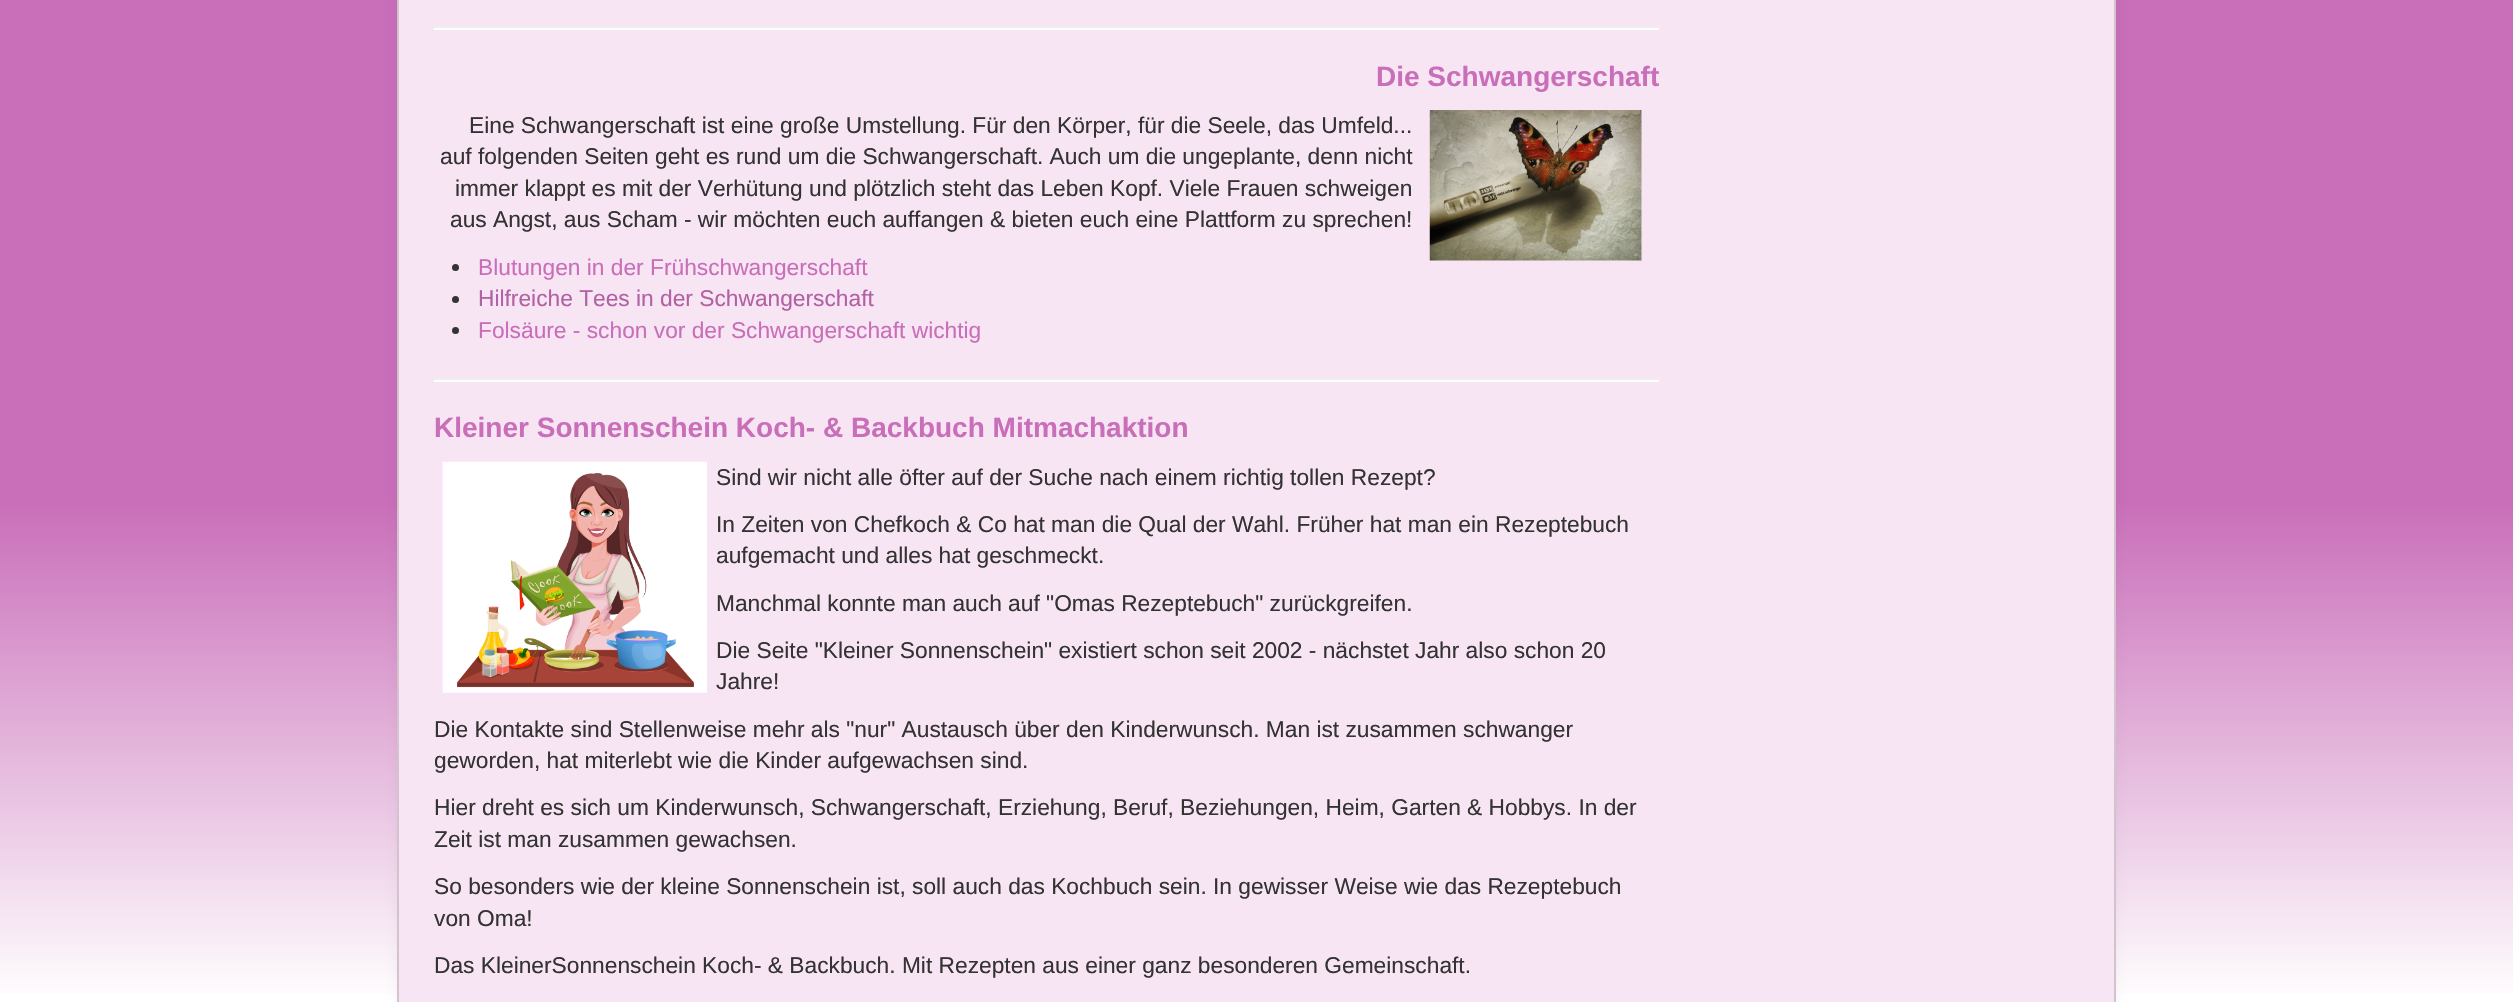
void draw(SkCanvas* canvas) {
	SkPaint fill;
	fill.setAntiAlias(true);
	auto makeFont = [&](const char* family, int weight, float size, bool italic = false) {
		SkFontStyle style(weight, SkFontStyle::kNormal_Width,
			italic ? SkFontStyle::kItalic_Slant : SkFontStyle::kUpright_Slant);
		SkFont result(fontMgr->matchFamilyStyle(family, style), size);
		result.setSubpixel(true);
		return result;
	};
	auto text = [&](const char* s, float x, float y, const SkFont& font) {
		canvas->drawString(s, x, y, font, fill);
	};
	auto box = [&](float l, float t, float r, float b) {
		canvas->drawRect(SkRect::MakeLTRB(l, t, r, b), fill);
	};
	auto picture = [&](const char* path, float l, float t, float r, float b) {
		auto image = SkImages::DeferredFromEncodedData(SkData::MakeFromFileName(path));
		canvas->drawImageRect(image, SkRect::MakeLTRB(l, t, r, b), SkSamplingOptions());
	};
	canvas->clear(0xFFFFFFFF);
	{
		const SkColor colors[] = {0xFFFFFFFF, 0xFFC96EB9};
		const float stops[] = {0, 0.5f};
		const SkPoint ends[] = {{1257, 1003}, {1257, 0}};
		fill.setShader(SkGradientShader::MakeLinear(ends, colors, stops, 2, SkTileMode::kClamp));
		fill.setAlpha(255);
	}
	box(0, 0, 2513, 994);
	fill.setShader(nullptr);
	fill.setColor(0x0D000000);
	fill.setMaskFilter(SkMaskFilter::MakeBlur(kNormal_SkBlurStyle, 5));
	canvas->drawRoundRect(SkRect::MakeLTRB(397, -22, 2116, 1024), 7, 7, fill);
	fill.setMaskFilter(nullptr);
	fill.setColor(0xFFF8E5F4);
	canvas->drawRect(SkRect::MakeLTRB(398, -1, 2115, 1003), fill);
	fill.setStyle(SkPaint::kStroke_Style);
	fill.setStrokeWidth(2);
	fill.setColor(0xFFD3C3CF);
	canvas->drawRect(SkRect::MakeLTRB(398, -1, 2115, 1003), fill);
	fill.setStyle(SkPaint::kFill_Style);
	fill.setColor(0xFFEEEEEE);
	box(434, 26, 1659, 28);
	fill.setColor(0xFFFFFFFF);
	box(434, 28, 1659, 30);
	picture("image0.png", 1429, 110, 1642, 261);
	fill.setColor(0xFF333333);
	canvas->drawCircle(455.5f, 267.5f, 3.5f, fill);
	canvas->drawCircle(455.5f, 299.5f, 3.5f, fill);
	canvas->drawCircle(455.5f, 330.5f, 3.5f, fill);
	fill.setColor(0xFFEEEEEE);
	box(434, 378, 1659, 380);
	fill.setColor(0xFFFFFFFF);
	box(434, 380, 1659, 382);
	picture("image1.png", 442, 461, 707, 693);
	auto font1 = makeFont("Liberation Sans", 700, 28);
	fill.setColor(0xFFC96EB9);
	text("Die Schwangerschaft", 1376, 86, font1);
	auto font2 = makeFont("Liberation Sans", 400, 22.75f);
	fill.setColor(0xFF333333);
	text("Eine Schwangerschaft ist eine große Umstellung. Für den Körper, für die Seele, das Umfeld...", 469, 133, font2);
	text("auf folgenden Seiten geht es rund um die Schwangerschaft. Auch um die ungeplante, denn nicht", 440, 164, font2);
	text("immer klappt es mit der Verhütung und plötzlich steht das Leben Kopf. Viele Frauen schweigen", 455, 196, font2);
	text("aus Angst, aus Scham - wir möchten euch auffangen & bieten euch eine Plattform zu sprechen!", 450, 227, font2);
	fill.setColor(0xFFC96EB9);
	text("Blutungen in der Frühschwangerschaft", 478, 275, font2);
	fill.setColor(0xFFB161A4);
	text("Hilfreiche Tees in der Schwangerschaft", 478, 306, font2);
	fill.setColor(0xFFC96EB9);
	text("Folsäure - schon vor der Schwangerschaft wichtig", 478, 338, font2);
	text("Kleiner Sonnenschein Koch- & Backbuch Mitmachaktion", 434, 437, font1);
	fill.setColor(0xFF333333);
	text("Sind wir nicht alle öfter auf der Suche nach einem richtig tollen Rezept?", 716, 485, font2);
	text("In Zeiten von Chefkoch & Co hat man die Qual der Wahl. Früher hat man ein Rezeptebuch", 716, 532, font2);
	text("aufgemacht und alles hat geschmeckt.", 716, 563, font2);
	text("Manchmal konnte man auch auf \"Omas Rezeptebuch\" zurückgreifen.", 716, 611, font2);
	text("Die Seite \"Kleiner Sonnenschein\" existiert schon seit 2002 - nächstet Jahr also schon 20", 716, 658, font2);
	text("Jahre!", 716, 689, font2);
	text("Die Kontakte sind Stellenweise mehr als \"nur\" Austausch über den Kinderwunsch. Man ist zusammen schwanger", 434, 737, font2);
	text("geworden, hat miterlebt wie die Kinder aufgewachsen sind.", 434, 768, font2);
	text("Hier dreht es sich um Kinderwunsch, Schwangerschaft, Erziehung, Beruf, Beziehungen, Heim, Garten & Hobbys. In der", 434, 815, font2);
	text("Zeit ist man zusammen gewachsen.", 434, 847, font2);
	text("So besonders wie der kleine Sonnenschein ist, soll auch das Kochbuch sein. In gewisser Weise wie das Rezeptebuch", 434, 894, font2);
	text("von Oma!", 434, 926, font2);
	text("Das KleinerSonnenschein Koch- & Backbuch. Mit Rezepten aus einer ganz besonderen Gemeinschaft.", 434, 973, font2);
}
